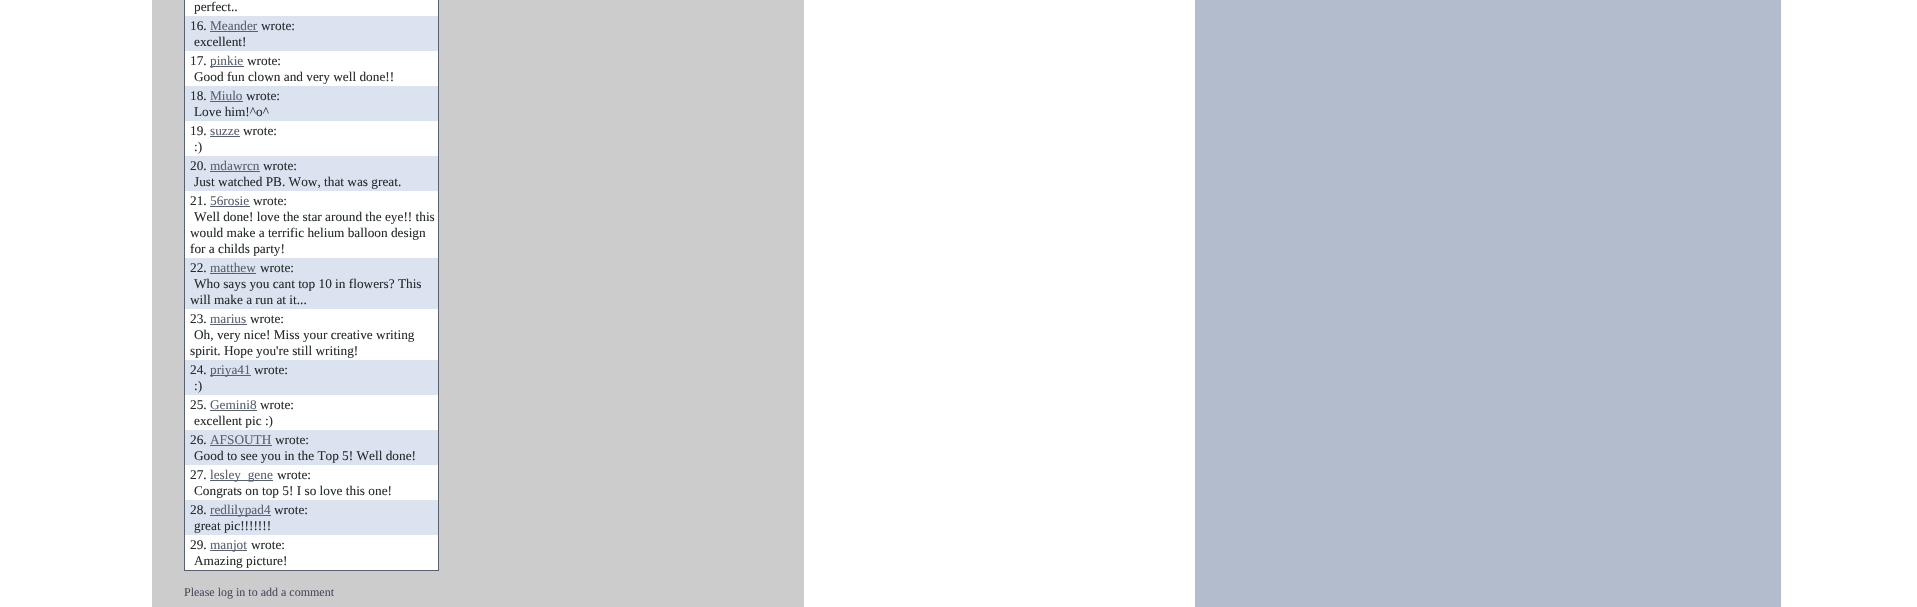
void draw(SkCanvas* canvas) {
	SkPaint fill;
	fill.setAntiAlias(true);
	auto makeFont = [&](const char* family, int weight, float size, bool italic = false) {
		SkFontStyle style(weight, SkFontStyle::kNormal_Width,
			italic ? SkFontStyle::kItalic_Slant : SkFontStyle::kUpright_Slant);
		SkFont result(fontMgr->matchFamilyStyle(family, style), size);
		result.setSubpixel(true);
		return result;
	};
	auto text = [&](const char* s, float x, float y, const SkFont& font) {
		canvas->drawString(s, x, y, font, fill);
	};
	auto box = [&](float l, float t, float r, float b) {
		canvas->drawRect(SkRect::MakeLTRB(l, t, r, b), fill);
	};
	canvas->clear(0xFFFFFFFF);
	fill.setColor(0xFFB3BCCC);
	box(1195, 0, 1781, 607);
	fill.setColor(0xFFCCCCCC);
	box(152, 0, 804, 607);
	fill.setColor(0xFFFFFFFF);
	canvas->drawRect(SkRect::MakeLTRB(184.5f, -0.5f, 438.5f, 570.5f), fill);
	fill.setStyle(SkPaint::kStroke_Style);
	fill.setStrokeWidth(1);
	fill.setColor(0xFF596171);
	canvas->drawRect(SkRect::MakeLTRB(184.5f, -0.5f, 438.5f, 570.5f), fill);
	fill.setStyle(SkPaint::kFill_Style);
	fill.setColor(0xFFDBE3F0);
	box(185, 16, 438, 51);
	fill.setColor(0xFF596171);
	box(210, 31, 258, 32);
	box(210, 66, 244, 67);
	fill.setColor(0xFFDBE3F0);
	box(185, 86, 438, 121);
	fill.setColor(0xFF596171);
	box(210, 101, 243, 102);
	box(210, 136, 240, 137);
	fill.setColor(0xFFDBE3F0);
	box(185, 156, 438, 191);
	fill.setColor(0xFF596171);
	box(210, 171, 260, 172);
	box(210, 206, 250, 207);
	fill.setColor(0xFFDBE3F0);
	box(185, 258, 438, 309);
	fill.setColor(0xFF596171);
	box(210, 273, 256, 274);
	box(210, 324, 247, 325);
	fill.setColor(0xFFDBE3F0);
	box(185, 360, 438, 395);
	fill.setColor(0xFF596171);
	box(210, 375, 251, 376);
	box(210, 410, 257, 411);
	fill.setColor(0xFFDBE3F0);
	box(185, 430, 438, 465);
	fill.setColor(0xFF596171);
	box(210, 445, 272, 446);
	box(210, 480, 273, 481);
	fill.setColor(0xFFDBE3F0);
	box(185, 500, 438, 535);
	fill.setColor(0xFF596171);
	box(210, 515, 271, 516);
	box(210, 550, 247, 551);
	auto font1 = makeFont("Liberation Serif", 400, 13.3f);
	fill.setColor(0xFF272D2E);
	text("perfect..", 194, 11, font1);
	text("16.", 190, 30, font1);
	fill.setColor(0xFF596171);
	text("Meander", 210, 30, font1);
	fill.setColor(0xFF272D2E);
	text("wrote:", 261, 30, font1);
	text("excellent!", 194, 46, font1);
	text("17.", 190, 65, font1);
	fill.setColor(0xFF596171);
	text("pinkie", 210, 65, font1);
	fill.setColor(0xFF272D2E);
	text("wrote:", 247, 65, font1);
	text("Good fun clown and very well done!!", 194, 81, font1);
	text("18.", 190, 100, font1);
	fill.setColor(0xFF596171);
	text("Miulo", 210, 100, font1);
	fill.setColor(0xFF272D2E);
	text("wrote:", 246, 100, font1);
	text("Love him!^o^", 194, 116, font1);
	text("19.", 190, 135, font1);
	fill.setColor(0xFF596171);
	text("suzze", 210, 135, font1);
	fill.setColor(0xFF272D2E);
	text("wrote:", 243, 135, font1);
	text(":)", 194, 151, font1);
	text("20.", 190, 170, font1);
	fill.setColor(0xFF596171);
	text("mdawrcn", 210, 170, font1);
	fill.setColor(0xFF272D2E);
	text("wrote:", 263, 170, font1);
	text("Just watched PB. Wow, that was great.", 194, 186, font1);
	text("21.", 190, 205, font1);
	fill.setColor(0xFF596171);
	text("56rosie", 210, 205, font1);
	fill.setColor(0xFF272D2E);
	text("wrote:", 253, 205, font1);
	text("Well done! love the star around the eye!! this", 194, 221, font1);
	text("would make a terrific helium balloon design", 190, 237, font1);
	text("for a childs party!", 190, 253, font1);
	text("22.", 190, 272, font1);
	fill.setColor(0xFF596171);
	text("matthew", 210, 272, font1);
	fill.setColor(0xFF272D2E);
	text("wrote:", 260, 272, font1);
	text("Who says you cant top 10 in flowers? This", 194, 288, font1);
	text("will make a run at it...", 190, 304, font1);
	text("23.", 190, 323, font1);
	fill.setColor(0xFF596171);
	text("marius", 210, 323, font1);
	fill.setColor(0xFF272D2E);
	text("wrote:", 250, 323, font1);
	text("Oh, very nice! Miss your creative writing", 194, 339, font1);
	text("spirit. Hope you're still writing!", 190, 355, font1);
	text("24.", 190, 374, font1);
	fill.setColor(0xFF596171);
	text("priya41", 210, 374, font1);
	fill.setColor(0xFF272D2E);
	text("wrote:", 254, 374, font1);
	text(":)", 194, 390, font1);
	text("25.", 190, 409, font1);
	fill.setColor(0xFF596171);
	text("Gemini8", 210, 409, font1);
	fill.setColor(0xFF272D2E);
	text("wrote:", 260, 409, font1);
	text("excellent pic :)", 194, 425, font1);
	text("26.", 190, 444, font1);
	fill.setColor(0xFF596171);
	text("AFSOUTH", 210, 444, font1);
	fill.setColor(0xFF272D2E);
	text("wrote:", 275, 444, font1);
	text("Good to see you in the Top 5! Well done!", 194, 460, font1);
	text("27.", 190, 479, font1);
	fill.setColor(0xFF596171);
	text("lesley_gene", 210, 479, font1);
	fill.setColor(0xFF272D2E);
	text("wrote:", 277, 479, font1);
	text("Congrats on top 5! I so love this one!", 194, 495, font1);
	text("28.", 190, 514, font1);
	fill.setColor(0xFF596171);
	text("redlilypad4", 210, 514, font1);
	fill.setColor(0xFF272D2E);
	text("wrote:", 274, 514, font1);
	text("great pic!!!!!!!", 194, 530, font1);
	text("29.", 190, 549, font1);
	fill.setColor(0xFF596171);
	text("manjot", 210, 549, font1);
	fill.setColor(0xFF272D2E);
	text("wrote:", 251, 549, font1);
	text("Amazing picture!", 194, 565, font1);
	auto font2 = makeFont("Liberation Serif", 400, 12);
	fill.setColor(0xFF4C4C61);
	text("Please log in to add a comment", 184, 596, font2);
}
